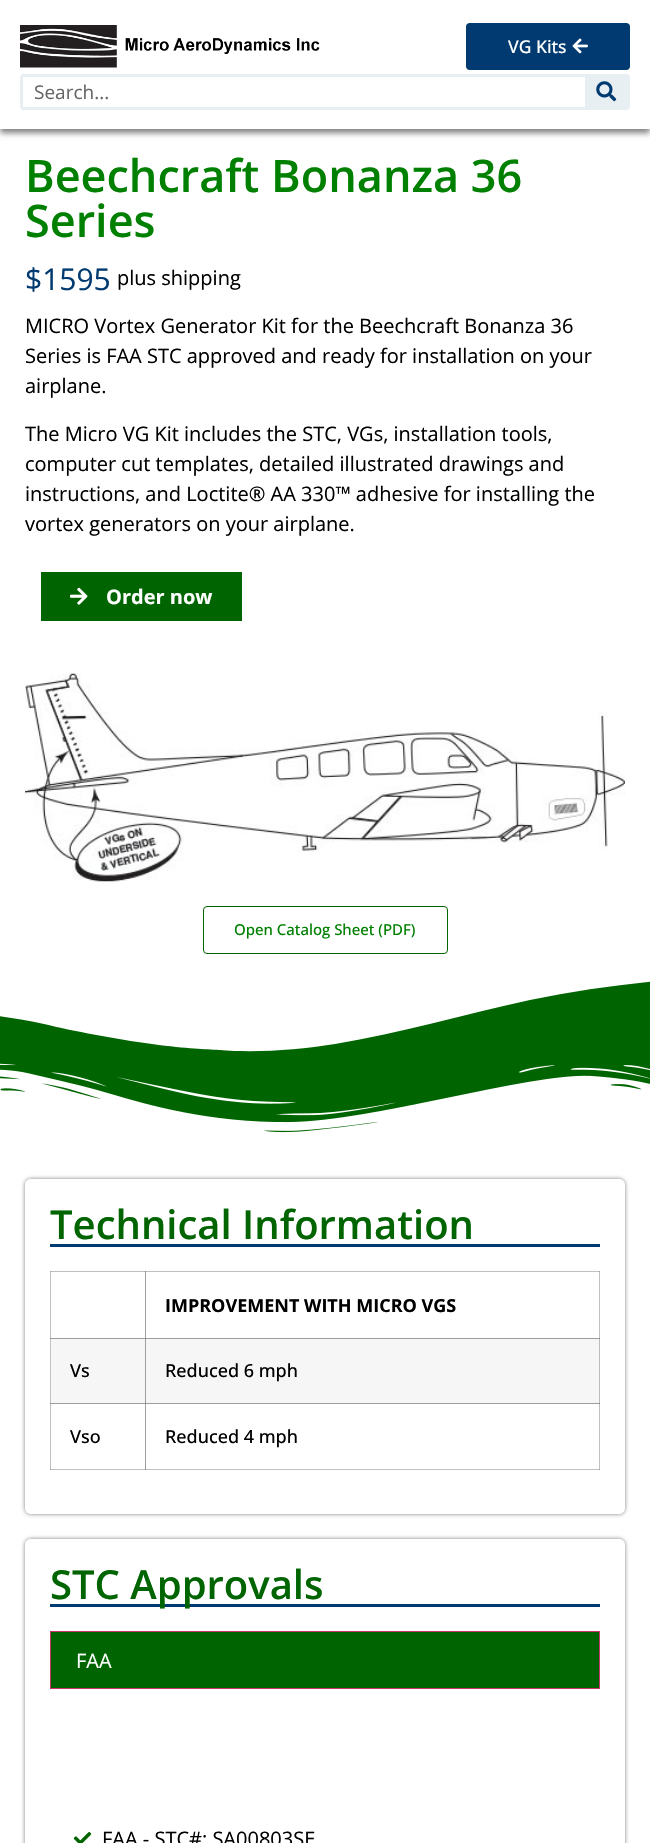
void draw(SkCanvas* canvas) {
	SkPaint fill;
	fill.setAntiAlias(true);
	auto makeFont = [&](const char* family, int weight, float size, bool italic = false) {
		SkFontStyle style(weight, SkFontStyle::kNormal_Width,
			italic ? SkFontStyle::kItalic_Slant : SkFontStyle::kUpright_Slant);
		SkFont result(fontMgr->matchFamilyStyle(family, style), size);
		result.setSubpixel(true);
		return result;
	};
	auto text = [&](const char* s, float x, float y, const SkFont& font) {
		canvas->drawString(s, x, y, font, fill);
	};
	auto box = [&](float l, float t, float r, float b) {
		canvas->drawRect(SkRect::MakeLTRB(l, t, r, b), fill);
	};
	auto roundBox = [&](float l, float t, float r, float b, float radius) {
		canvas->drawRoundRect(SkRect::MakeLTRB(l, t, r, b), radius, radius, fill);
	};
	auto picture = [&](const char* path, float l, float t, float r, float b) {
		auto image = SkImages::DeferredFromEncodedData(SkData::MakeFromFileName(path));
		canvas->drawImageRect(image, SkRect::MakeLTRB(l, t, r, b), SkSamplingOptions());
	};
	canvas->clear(0xFFFFFFFF);
	fill.setColor(0xFFC0C0C0);
	box(50, 1271, 51, 1470);
	box(50, 1271, 146, 1272);
	fill.setColor(0xFFA0A0A0);
	box(50, 1271, 51, 1272);
	box(145, 1271, 146, 1339);
	fill.setColor(0xFFC0C0C0);
	box(599, 1271, 600, 1339);
	fill.setColor(0xFF888888);
	box(50, 1338, 51, 1339);
	fill.setColor(0xFFC0C0C0);
	box(50, 1469, 146, 1470);
	fill.setColor(0xFFA0A0A0);
	box(50, 1469, 51, 1470);
	fill.setColor(0xFF888888);
	box(50, 1403, 51, 1404);
	fill.setColor(0xFFA0A0A0);
	box(145, 1403, 146, 1470);
	fill.setColor(0xFFC0C0C0);
	box(145, 1469, 600, 1470);
	fill.setColor(0xFF888888);
	box(145, 1469, 146, 1470);
	fill.setColor(0xFFC0C0C0);
	box(599, 1403, 600, 1470);
	fill.setColor(0xFFA0A0A0);
	box(599, 1469, 600, 1470);
	fill.setColor(0x80000000);
	fill.setMaskFilter(SkMaskFilter::MakeBlur(kNormal_SkBlurStyle, 3));
	canvas->drawRect(SkRect::MakeLTRB(0, 4, 650, 133), fill);
	fill.setMaskFilter(nullptr);
	fill.setColor(0xFFFFFFFF);
	box(0, 0, 650, 129);
	picture("image0.png", 20, 25, 320, 68);
	fill.setColor(0xFF003A70);
	roundBox(466, 23, 630, 70, 4);
	picture("image1.png", 572, 38, 588, 54);
	fill.setStyle(SkPaint::kStroke_Style);
	fill.setStrokeWidth(3);
	fill.setColor(0xFFE7EFF2);
	canvas->drawRoundRect(SkRect::MakeLTRB(21.5f, 75.5f, 628.5f, 108.5f), 2.5f, 2.5f, fill);
	fill.setStyle(SkPaint::kFill_Style);
	canvas->drawPath(SkPathBuilder().moveTo(585, 76).lineTo(627, 76).cubicTo(627.5f, 76, 628, 76.5f, 628, 77).lineTo(628, 107).cubicTo(628, 107.5f, 627.5f, 108, 627, 108).lineTo(585, 108).close().detach(), fill);
	picture("image2.png", 596, 81, 617, 102);
	fill.setColor(0xFF006400);
	box(41, 572, 242, 621);
	picture("image3.png", 70, 587, 88, 605);
	picture("image4.png", 25, 673, 625, 882);
	fill.setStyle(SkPaint::kStroke_Style);
	fill.setStrokeWidth(1);
	canvas->drawRoundRect(SkRect::MakeLTRB(203.5f, 906.5f, 447.5f, 953.5f), 3.5f, 3.5f, fill);
	fill.setStyle(SkPaint::kFill_Style);
	canvas->drawPath(SkPathBuilder().moveTo(219, 1050).cubicTo(256, 1053, 298, 1050, 335, 1044).cubicTo(401, 1033, 465, 1014, 530, 1000).cubicTo(630, 980, 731, 972, 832, 977).cubicTo(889, 980, 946, 987, 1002, 999).lineTo(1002, 1056).lineTo(-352, 1056).lineTo(-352, 1031).cubicTo(-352, 1031, -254, 1004, -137, 1006).cubicTo(-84, 1007, -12, 1012, 44, 1024).cubicTo(73, 1031, 115, 1039, 152, 1044).cubicTo(189, 1049, 205, 1049, 219, 1050).close().detach(), fill);
	picture("image5.png", 0, 1055, 650, 1133);
	canvas->save();
	canvas->clipPath(SkPathBuilder(SkPathFillType::kEvenOdd).moveTo(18, 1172).lineTo(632, 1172).lineTo(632, 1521).lineTo(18, 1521).close().moveTo(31, 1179).lineTo(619, 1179).cubicTo(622.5f, 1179, 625, 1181.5f, 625, 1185).lineTo(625, 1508).cubicTo(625, 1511.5f, 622.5f, 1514, 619, 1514).lineTo(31, 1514).cubicTo(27.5f, 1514, 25, 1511.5f, 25, 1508).lineTo(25, 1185).cubicTo(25, 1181.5f, 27.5f, 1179, 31, 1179).close().detach(), true);
	fill.setColor(0x80000000);
	fill.setMaskFilter(SkMaskFilter::MakeBlur(kNormal_SkBlurStyle, 2));
	canvas->drawRoundRect(SkRect::MakeLTRB(25, 1179, 625, 1514), 6, 6, fill);
	fill.setMaskFilter(nullptr);
	canvas->restore();
	fill.setColor(0xFF003A70);
	box(50, 1244, 600, 1247);
	fill.setColor(0xFFC0C0C0);
	box(145, 1271, 600, 1272);
	fill.setColor(0xFF888888);
	box(145, 1271, 146, 1272);
	fill.setColor(0xFFA0A0A0);
	box(599, 1271, 600, 1272);
	fill.setColor(0xFFF6F6F6);
	box(51, 1339, 145, 1403);
	fill.setColor(0xFF9E9E9E);
	box(51, 1338, 146, 1339);
	box(145, 1338, 146, 1404);
	box(51, 1403, 146, 1404);
	fill.setColor(0xFFF6F6F6);
	box(146, 1339, 599, 1403);
	fill.setColor(0xFFBBBBBB);
	box(599, 1338, 600, 1404);
	fill.setColor(0xFF9E9E9E);
	box(145, 1338, 600, 1339);
	fill.setColor(0xFF818181);
	box(145, 1338, 146, 1339);
	fill.setColor(0xFF888888);
	box(599, 1338, 600, 1339);
	fill.setColor(0xFF9E9E9E);
	box(145, 1403, 600, 1404);
	fill.setColor(0xFF818181);
	box(145, 1403, 146, 1404);
	fill.setColor(0xFF888888);
	box(599, 1403, 600, 1404);
	canvas->save();
	canvas->clipPath(SkPathBuilder(SkPathFillType::kEvenOdd).moveTo(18, 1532).lineTo(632, 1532).lineTo(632, 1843).lineTo(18, 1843).close().moveTo(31, 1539).lineTo(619, 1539).cubicTo(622.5f, 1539, 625, 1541.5f, 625, 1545).lineTo(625, 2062).cubicTo(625, 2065.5f, 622.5f, 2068, 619, 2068).lineTo(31, 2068).cubicTo(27.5f, 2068, 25, 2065.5f, 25, 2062).lineTo(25, 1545).cubicTo(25, 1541.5f, 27.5f, 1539, 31, 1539).close().detach(), true);
	fill.setColor(0x80000000);
	fill.setMaskFilter(SkMaskFilter::MakeBlur(kNormal_SkBlurStyle, 2));
	canvas->drawRoundRect(SkRect::MakeLTRB(25, 1539, 625, 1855), 6, 6, fill);
	fill.setMaskFilter(nullptr);
	canvas->restore();
	fill.setColor(0xFF003A70);
	box(50, 1604, 600, 1607);
	fill.setColor(0xFF006400);
	canvas->drawRect(SkRect::MakeLTRB(50.5f, 1631.5f, 599.5f, 1688.5f), fill);
	fill.setStyle(SkPaint::kStroke_Style);
	fill.setColor(0xFFCC3366);
	canvas->drawRect(SkRect::MakeLTRB(50.5f, 1631.5f, 599.5f, 1688.5f), fill);
	picture("image6.png", 73, 1831, 92, 1843);
	auto font1 = makeFont("Open Sans", 500, 17.5f);
	fill.setStyle(SkPaint::kFill_Style);
	fill.setColor(0xFFFFFFFF);
	text("VG Kits", 508, 53, font1);
	auto font2 = makeFont("Open Sans", 400, 19);
	fill.setColor(0xFF666666);
	text("Search...", 34, 99, font2);
	auto font3 = makeFont("Open Sans", 600, 45);
	fill.setColor(0xFF008000);
	text("Beechcraft Bonanza 36", 25, 192, font3);
	text("Series", 25, 237, font3);
	auto font4 = makeFont("Open Sans", 400, 30);
	fill.setColor(0xFF003A70);
	text("$1595", 25, 290, font4);
	auto font5 = makeFont("Open Sans", 400, 20);
	fill.setColor(0xFF000000);
	text("plus shipping", 117, 285, font5);
	text("MICRO Vortex Generator Kit for the Beechcraft Bonanza 36", 25, 333, font5);
	text("Series is FAA STC approved and ready for installation on your", 25, 363, font5);
	text("airplane.", 25, 393, font5);
	text("The Micro VG Kit includes the STC, VGs, installation tools,", 25, 441, font5);
	text("computer cut templates, detailed illustrated drawings and", 25, 471, font5);
	text("instructions, and Loctite® AA 330™ adhesive for installing the", 25, 501, font5);
	text("vortex generators on your airplane.", 25, 531, font5);
	auto font6 = makeFont("Open Sans", 700, 20);
	fill.setColor(0xFFFFFFFF);
	text("Order now", 106, 604, font6);
	auto font7 = makeFont("Open Sans", 500, 15);
	fill.setColor(0xFF008000);
	text("Open Catalog Sheet (PDF)", 234, 935, font7);
	auto font8 = makeFont("Open Sans", 600, 40);
	fill.setColor(0xFF006400);
	text("Technical Information", 50, 1239, font8);
	auto font9 = makeFont("Open Sans", 700, 18);
	fill.setColor(0xFF000000);
	text("IMPROVEMENT WITH MICRO VGS", 165, 1312, font9);
	auto font10 = makeFont("Open Sans", 500, 18);
	text("Vs", 70, 1377, font10);
	text("Reduced 6 mph", 165, 1377, font10);
	text("Vso", 70, 1443, font10);
	text("Reduced 4 mph", 165, 1443, font10);
	fill.setColor(0xFF006400);
	text("STC Approvals", 50, 1599, font8);
	fill.setColor(0xFFFFFFFF);
	text("FAA", 76, 1668, font5);
	fill.setColor(0xFF000000);
	text("FAA - STC#: SA00803SE", 102, 1846, font5);
}
